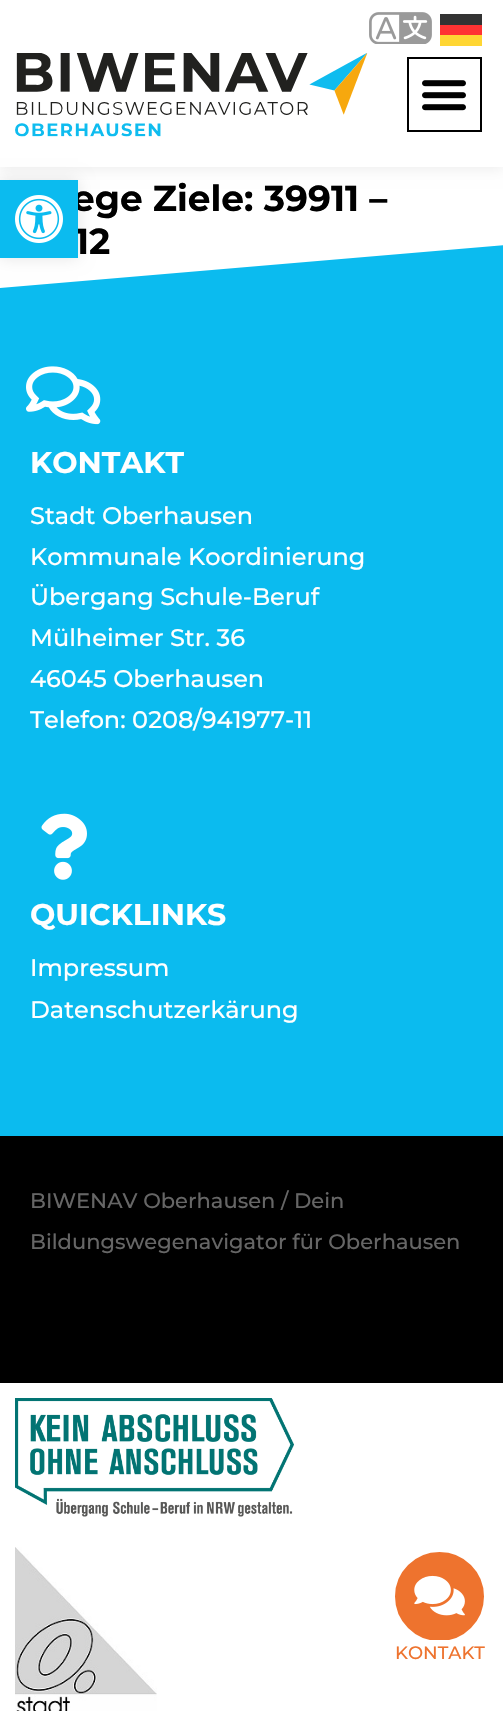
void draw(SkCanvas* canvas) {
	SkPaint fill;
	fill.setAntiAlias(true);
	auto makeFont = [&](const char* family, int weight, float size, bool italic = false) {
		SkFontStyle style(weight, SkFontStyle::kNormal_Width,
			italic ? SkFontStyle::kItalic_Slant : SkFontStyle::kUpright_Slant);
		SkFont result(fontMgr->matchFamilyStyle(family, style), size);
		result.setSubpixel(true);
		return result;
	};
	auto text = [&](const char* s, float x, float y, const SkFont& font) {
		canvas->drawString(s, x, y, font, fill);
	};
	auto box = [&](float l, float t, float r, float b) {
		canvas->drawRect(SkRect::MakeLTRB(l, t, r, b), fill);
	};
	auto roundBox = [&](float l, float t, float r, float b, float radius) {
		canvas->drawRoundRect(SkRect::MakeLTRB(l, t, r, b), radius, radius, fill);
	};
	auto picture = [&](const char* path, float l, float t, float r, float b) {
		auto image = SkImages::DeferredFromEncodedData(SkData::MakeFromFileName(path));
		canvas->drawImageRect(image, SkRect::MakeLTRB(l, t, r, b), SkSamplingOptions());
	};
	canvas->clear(0xFFFFFFFF);
	fill.setColor(0x17000000);
	fill.setMaskFilter(SkMaskFilter::MakeBlur(kNormal_SkBlurStyle, 7.5f));
	canvas->drawRect(SkRect::MakeLTRB(0, 0, 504, 167), fill);
	fill.setMaskFilter(nullptr);
	fill.setColor(0xFFFFFFFF);
	box(0, 0, 503, 167);
	picture("image0.png", 15, 53, 368, 137);
	fill.setStyle(SkPaint::kStroke_Style);
	fill.setStrokeWidth(2);
	fill.setColor(0xFF000000);
	canvas->drawRect(SkRect::MakeLTRB(408, 58, 481, 131), fill);
	picture("image1.png", 422, 80, 466, 111);
	picture("image2.png", 369, 12, 432, 44);
	fill.setStyle(SkPaint::kFill_Style);
	fill.setColor(0xFF333333);
	box(440, 14, 482, 25);
	fill.setColor(0xFFFF3333);
	box(440, 25, 482, 35);
	fill.setColor(0xFFFFD633);
	box(440, 35, 482, 46);
	fill.setColor(0xFF0BBBEF);
	box(0, 290, 503, 1136);
	picture("image4.png", 26, 366, 101, 425);
	picture("image5.png", 41, 813, 87, 880);
	fill.setColor(0xFF000000);
	box(0, 1136, 503, 1383);
	fill.setColor(0xFFEE732E);
	canvas->drawCircle(439.5f, 1596.5f, 47, fill);
	fill.setStyle(SkPaint::kStroke_Style);
	fill.setStrokeWidth(5);
	fill.setColor(0xFFFFFFFF);
	canvas->drawCircle(439.5f, 1596.5f, 47, fill);
	picture("image6.png", 414, 1575, 465, 1616);
	fill.setStyle(SkPaint::kFill_Style);
	roundBox(390, 1640, 489, 1667, 8);
	picture("image7.png", 15, 1398, 294, 1517);
	picture("image8.png", 15, 1547, 157, 1711);
	auto font1 = makeFont("Montserrat", 700, 36);
	fill.setColor(0xFF000000);
	text("ege Ziele: 39911 –", 72, 211, font1);
	text("12", 75, 254, font1);
	fill.setColor(0xFF0BBBEF);
	canvas->drawPath(SkPathBuilder().moveTo(-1, 288).lineTo(-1, 290).lineTo(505, 290).lineTo(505, 245).close().detach(), fill);
	fill.setColor(0x1A000000);
	fill.setMaskFilter(SkMaskFilter::MakeBlur(kNormal_SkBlurStyle, 7.5f));
	canvas->drawRect(SkRect::MakeLTRB(0, 180, 78, 258), fill);
	fill.setMaskFilter(nullptr);
	fill.setColor(0xFF0BBBEF);
	box(0, 180, 78, 258);
	picture("image3.png", 15, 195, 63, 243);
	auto font2 = makeFont("Montserrat", 700, 30);
	fill.setColor(0xFFFFFFFF);
	text("KONTAKT", 30, 473, font2);
	auto font3 = makeFont("Montserrat", 500, 24);
	text("Stadt Oberhausen", 30, 524, font3);
	text("Kommunale Koordinierung", 30, 565, font3);
	text("Übergang Schule-Beruf", 30, 605, font3);
	text("Mülheimer Str. 36", 30, 646, font3);
	text("46045 Oberhausen", 30, 687, font3);
	text("Telefon: 0208/941977-11", 30, 728, font3);
	text("QUICKLINKS", 30, 925, font2);
	text("Impressum", 30, 976, font3);
	text("Datenschutzerkärung", 30, 1018, font3);
	auto font4 = makeFont("Montserrat", 500, 21);
	fill.setColor(0xFF666666);
	text("BIWENAV Oberhausen / Dein", 30, 1208, font4);
	text("Bildungswegenavigator für Oberhausen", 30, 1249, font4);
	auto font5 = makeFont("Montserrat", 500, 18);
	fill.setColor(0xFFEE732E);
	text("KONTAKT", 395, 1659, font5);
}
